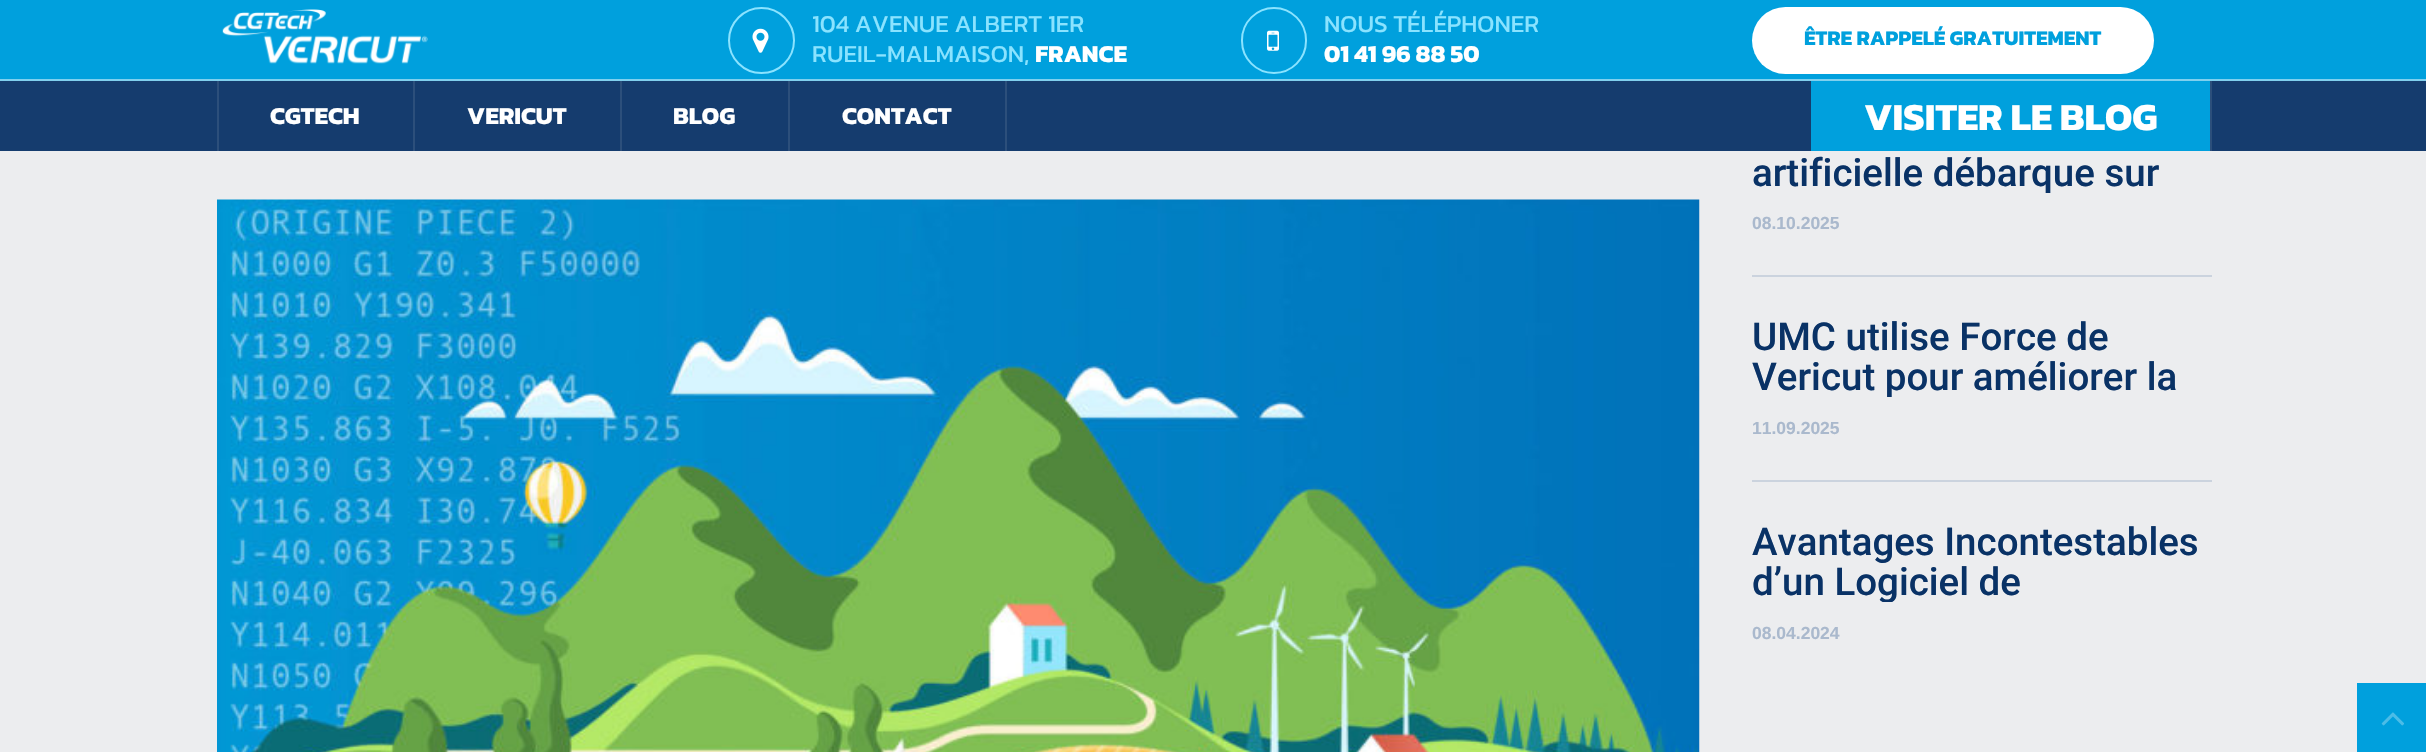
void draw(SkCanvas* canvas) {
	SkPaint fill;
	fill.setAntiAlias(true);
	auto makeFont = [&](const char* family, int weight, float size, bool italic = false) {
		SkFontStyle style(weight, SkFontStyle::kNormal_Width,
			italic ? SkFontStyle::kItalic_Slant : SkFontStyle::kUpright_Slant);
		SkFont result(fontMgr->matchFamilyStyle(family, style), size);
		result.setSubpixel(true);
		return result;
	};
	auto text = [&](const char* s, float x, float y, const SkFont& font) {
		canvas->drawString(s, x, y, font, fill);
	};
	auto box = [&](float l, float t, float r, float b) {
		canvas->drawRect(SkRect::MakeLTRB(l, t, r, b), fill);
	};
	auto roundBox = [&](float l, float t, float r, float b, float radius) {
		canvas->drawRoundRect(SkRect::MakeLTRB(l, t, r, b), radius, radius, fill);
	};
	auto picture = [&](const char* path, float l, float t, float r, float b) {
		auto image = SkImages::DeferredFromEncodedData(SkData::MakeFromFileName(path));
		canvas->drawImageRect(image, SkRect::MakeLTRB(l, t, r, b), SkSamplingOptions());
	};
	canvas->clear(0xFFECEDEF);
	fill.setColor(0xFF00A0DD);
	box(0, 0, 2426, 79);
	fill.setColor(0xFF80D0EE);
	box(0, 79, 2426, 81);
	picture("image0.png", 222, 9, 428, 64);
	fill.setStyle(SkPaint::kStroke_Style);
	fill.setStrokeWidth(2);
	fill.setColor(0xFF8AE3FF);
	canvas->drawCircle(761.5f, 40.5f, 32.5f, fill);
	picture("image1.png", 752, 28, 769, 53);
	canvas->drawRoundRect(SkRect::MakeLTRB(1242, 8, 1306, 73), 32, 32, fill);
	picture("image2.png", 1267, 30, 1279, 51);
	fill.setStyle(SkPaint::kFill_Style);
	fill.setColor(0xFFFFFFFF);
	roundBox(1752, 7, 2154, 74, 33.5f);
	fill.setColor(0xF2093266);
	box(0, 81, 2426, 151);
	fill.setColor(0xFF2C4F7B);
	box(413, 81, 415, 151);
	box(217, 81, 219, 151);
	box(620, 81, 622, 151);
	box(788, 81, 790, 151);
	box(1005, 81, 1007, 151);
	box(2210, 81, 2212, 151);
	fill.setColor(0xFF00A0DD);
	box(1811, 81, 2210, 151);
	picture("image3.png", 217, 199, 1700, 752);
	fill.setColor(0xFFCBD3DE);
	box(1752, 275, 2212, 277);
	box(1752, 480, 2212, 482);
	fill.setColor(0xFF00A0DD);
	box(2357, 683, 2426, 752);
	picture("image4.png", 2381, 712, 2404, 726);
	auto font1 = makeFont("Kanit", 400, 24.5f);
	fill.setColor(0xFF8AE3FF);
	text("104 AVENUE ALBERT 1ER", 812, 32, font1);
	text("RUEIL-MALMAISON,", 812, 62, font1);
	auto font2 = makeFont("Kanit", 700, 24.5f);
	fill.setColor(0xFFFFFFFF);
	text("FRANCE", 1035, 62, font2);
	fill.setColor(0xFF8AE3FF);
	text("NOUS TÉLÉPHONER", 1324, 32, font1);
	fill.setColor(0xFFFFFFFF);
	text("01 41 96 88 50", 1324, 62, font2);
	auto font3 = makeFont("Kanit", 700, 21);
	fill.setColor(0xFF00A0DD);
	text("ÊTRE RAPPELÉ GRATUITEMENT", 1804, 45, font3);
	fill.setColor(0xFFFFFFFF);
	text("CGTECH", 270, 124, font2);
	text("VERICUT", 467, 124, font2);
	text("BLOG", 673, 124, font2);
	text("CONTACT", 842, 124, font2);
	auto font4 = makeFont("Kanit", 700, 38.5f);
	text("VISITER LE BLOG", 1864, 130, font4);
	canvas->save();
	canvas->clipRect(SkRect::MakeLTRB(1752, 112, 2212, 193));
	auto font5 = makeFont("Roboto", 500, 38.5f);
	fill.setColor(0xFF093266);
	text("artificielle débarque sur", 1752, 186, font5);
	canvas->restore();
	auto font6 = makeFont("Liberation Sans", 700, 17.5f);
	fill.setColor(0xFFAAB9CD);
	text("08.10.2025", 1752, 229, font6);
	fill.setColor(0xFF093266);
	text("UMC utilise Force de", 1752, 350, font5);
	canvas->save();
	canvas->clipRect(SkRect::MakeLTRB(1752, 317, 2212, 397));
	text("Vericut pour améliorer la", 1752, 390, font5);
	canvas->restore();
	fill.setColor(0xFFAAB9CD);
	text("11.09.2025", 1752, 434, font6);
	fill.setColor(0xFF093266);
	text("Avantages Incontestables", 1752, 555, font5);
	canvas->save();
	canvas->clipRect(SkRect::MakeLTRB(1752, 522, 2212, 602));
	text("d’un Logiciel de", 1752, 595, font5);
	canvas->restore();
	fill.setColor(0xFFAAB9CD);
	text("08.04.2024", 1752, 639, font6);
}
